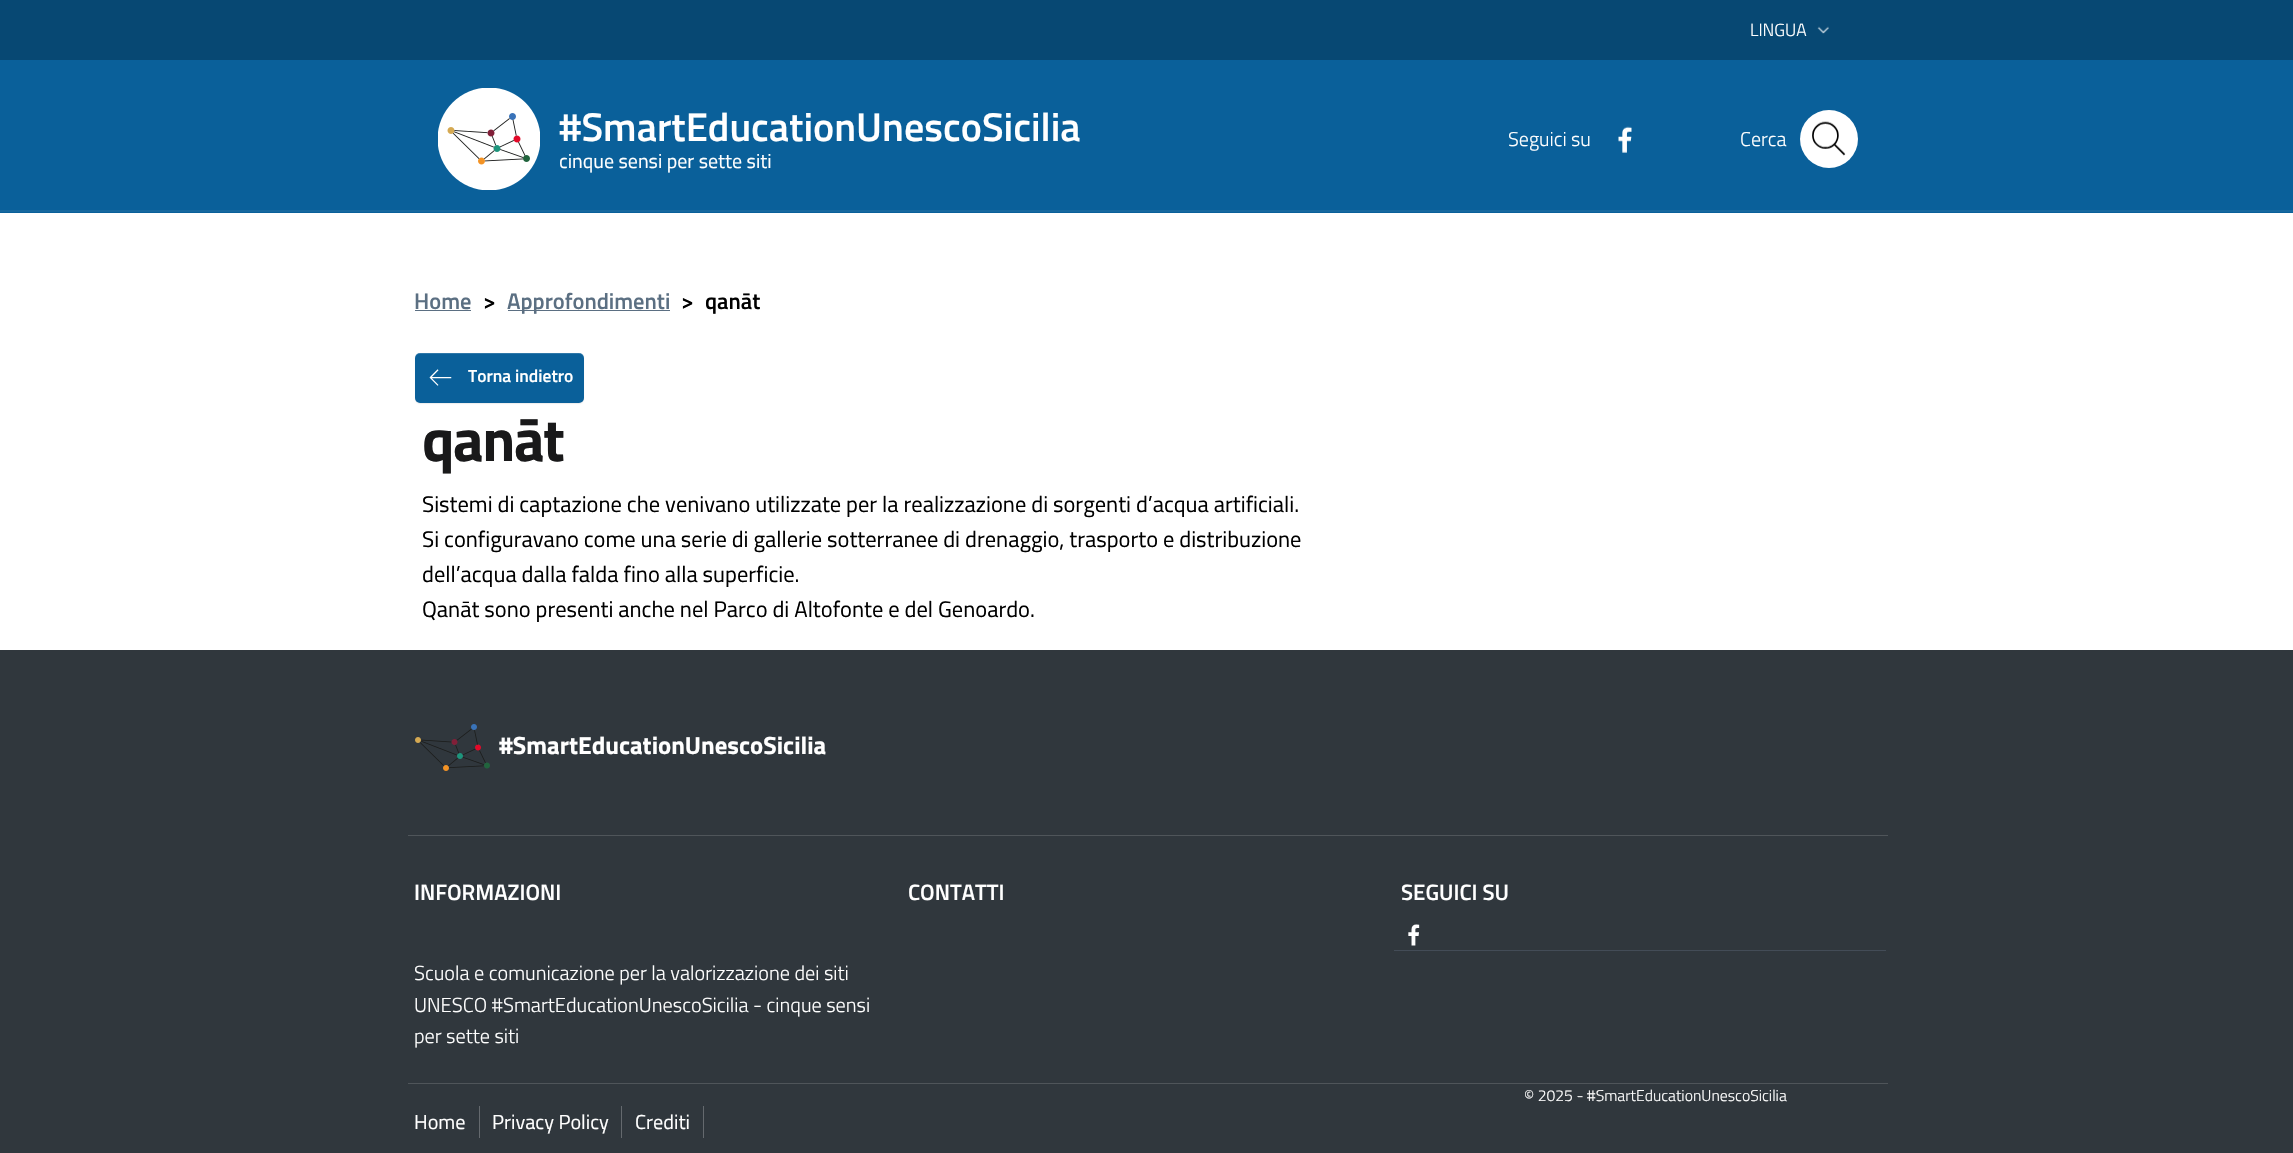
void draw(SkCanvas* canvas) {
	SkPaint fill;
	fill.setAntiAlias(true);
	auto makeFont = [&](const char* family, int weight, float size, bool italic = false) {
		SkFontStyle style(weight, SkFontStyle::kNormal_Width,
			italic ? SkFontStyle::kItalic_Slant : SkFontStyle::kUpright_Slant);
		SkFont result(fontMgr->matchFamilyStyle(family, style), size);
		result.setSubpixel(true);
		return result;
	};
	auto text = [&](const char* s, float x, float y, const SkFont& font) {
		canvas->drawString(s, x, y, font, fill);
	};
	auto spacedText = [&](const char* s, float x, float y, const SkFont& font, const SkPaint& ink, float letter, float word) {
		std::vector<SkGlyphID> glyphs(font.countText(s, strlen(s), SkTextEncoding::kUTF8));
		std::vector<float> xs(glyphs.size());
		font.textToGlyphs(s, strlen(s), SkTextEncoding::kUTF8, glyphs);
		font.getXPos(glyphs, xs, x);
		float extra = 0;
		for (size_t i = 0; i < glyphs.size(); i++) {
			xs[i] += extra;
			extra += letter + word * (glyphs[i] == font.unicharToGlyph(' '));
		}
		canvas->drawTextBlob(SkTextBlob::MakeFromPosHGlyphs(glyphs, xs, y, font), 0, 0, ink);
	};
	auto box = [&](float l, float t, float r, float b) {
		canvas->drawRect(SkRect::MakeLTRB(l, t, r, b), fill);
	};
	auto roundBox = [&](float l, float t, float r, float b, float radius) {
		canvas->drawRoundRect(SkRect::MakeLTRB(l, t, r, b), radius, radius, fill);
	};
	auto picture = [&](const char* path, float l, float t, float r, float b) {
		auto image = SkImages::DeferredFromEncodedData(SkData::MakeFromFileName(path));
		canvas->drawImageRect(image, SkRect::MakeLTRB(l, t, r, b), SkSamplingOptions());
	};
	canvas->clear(0xFFFFFFFF);
	fill.setColor(0xFF074873);
	box(0, 0, 2293, 60);
	picture("image0.png", 1817, 26, 1829, 34);
	fill.setColor(0xFF0A609A);
	box(0, 60, 2293, 210);
	picture("image1.png", 438, 88, 540, 190);
	picture("image2.png", 1618, 126, 1632, 153);
	fill.setColor(0xFFFFFFFF);
	canvas->drawCircle(1829, 139, 29, fill);
	picture("image3.png", 1812, 121, 1846, 156);
	fill.setColor(0xFF0A609A);
	box(0, 212, 2293, 213);
	fill.setColor(0xFF16689F);
	box(0, 210, 2293, 212);
	fill.setColor(0xFF5B6F82);
	box(415, 310, 471, 311);
	box(508, 310, 670, 311);
	fill.setColor(0x12000000);
	fill.setMaskFilter(SkMaskFilter::MakeBlur(kNormal_SkBlurStyle, 0.5f));
	canvas->drawRoundRect(SkRect::MakeLTRB(415, 354, 584, 404), 5, 5, fill);
	fill.setMaskFilter(nullptr);
	fill.setColor(0xFF0A609A);
	roundBox(415, 353, 584, 403, 5);
	fill.setColor(0x26FFFFFF);
	canvas->drawPath(SkPathBuilder().moveTo(420, 354).lineTo(579, 354).cubicTo(582, 354, 584, 356, 584, 359).lineTo(584, 358).cubicTo(584, 355, 582, 353, 579, 353).lineTo(420, 353).cubicTo(417, 353, 415, 355, 415, 358).lineTo(415, 359).cubicTo(415, 356, 417, 354, 420, 354).close().detach(), fill);
	picture("image4.png", 429, 369, 452, 386);
	fill.setColor(0xFF30373D);
	box(0, 650, 2293, 1153);
	picture("image5.png", 415, 724, 490, 771);
	fill.setColor(0xFF4F555A);
	box(408, 835, 1888, 836);
	box(408, 1083, 1888, 1084);
	picture("image6.png", 1408, 924, 1420, 946);
	fill.setColor(0xFF434C57);
	box(1394, 950, 1886, 951);
	fill.setColor(0xFF64696E);
	box(479, 1106, 480, 1138);
	box(621, 1106, 622, 1138);
	box(703, 1106, 704, 1138);
	auto font1 = makeFont("Titillium Web", 300, 17.5f);
	fill.setColor(0xFFFFFFFF);
	text("LINGUA", 1750, 36, font1);
	auto font2 = makeFont("Titillium Web", 600, 40);
	text("#SmartEducationUnescoSicilia", 559, 141, font2);
	auto font3 = makeFont("Titillium Web", 400, 20);
	text("cinque sensi per sette siti", 559, 168, font3);
	auto font4 = makeFont("Titillium Web", 300, 20);
	text("Seguici su", 1508, 146, font4);
	text("Cerca", 1740, 146, font4);
	auto font5 = makeFont("Titillium Web", 600, 22.5f);
	fill.setColor(0xFF5B6F82);
	text("Home", 414, 309, font5);
	fill.setColor(0xFF000000);
	text(">", 483, 309, font5);
	fill.setColor(0xFF5B6F82);
	text("Approfondimenti", 507, 309, font5);
	fill.setColor(0xFF000000);
	text(">", 681, 309, font5);
	text("qanāt", 705, 309, font5);
	auto font6 = makeFont("Titillium Web", 600, 17.5f);
	fill.setColor(0xFFFFFFFF);
	text("Torna indietro", 468, 382, font6);
	auto font7 = makeFont("Titillium Web", 700, 60);
	fill.setColor(0xFF19191A);
	spacedText("qanāt", 422, 461, font7, fill, -1.5f, 0);
	auto font8 = makeFont("Titillium Web", 400, 22.5f);
	fill.setColor(0xFF000000);
	text("Sistemi di captazione che venivano utilizzate per la realizzazione di sorgenti d’acqua artificiali.", 422, 512, font8);
	text("Si configuravano come una serie di gallerie sotterranee di drenaggio, trasporto e distribuzione", 422, 547, font8);
	text("dell’acqua dalla falda fino alla superficie.", 422, 582, font8);
	text("Qanāt sono presenti anche nel Parco di Altofonte e del Genoardo.", 422, 617, font8);
	auto font9 = makeFont("Titillium Web", 700, 24.75f);
	fill.setColor(0xFFFFFFFF);
	text("#SmartEducationUnescoSicilia", 499, 754, font9);
	auto font10 = makeFont("Titillium Web", 600, 22.25f);
	text("INFORMAZIONI", 414, 900, font10);
	auto font11 = makeFont("Titillium Web", 300, 20.25f);
	text("Scuola e comunicazione per la valorizzazione dei siti", 414, 980, font11);
	text("UNESCO #SmartEducationUnescoSicilia - cinque sensi", 414, 1012, font11);
	text("per sette siti", 414, 1043, font11);
	text("CONTATTI", 908, 900, font10);
	text("SEGUICI SU", 1401, 900, font10);
	auto font12 = makeFont("Titillium Web", 300, 15.75f);
	text("© 2025 - #SmartEducationUnescoSicilia", 1524, 1101, font12);
	auto font13 = makeFont("Titillium Web", 400, 20.25f);
	text("Home", 414, 1129, font13);
	text("Privacy Policy", 492, 1129, font13);
	text("Crediti", 635, 1129, font13);
}
